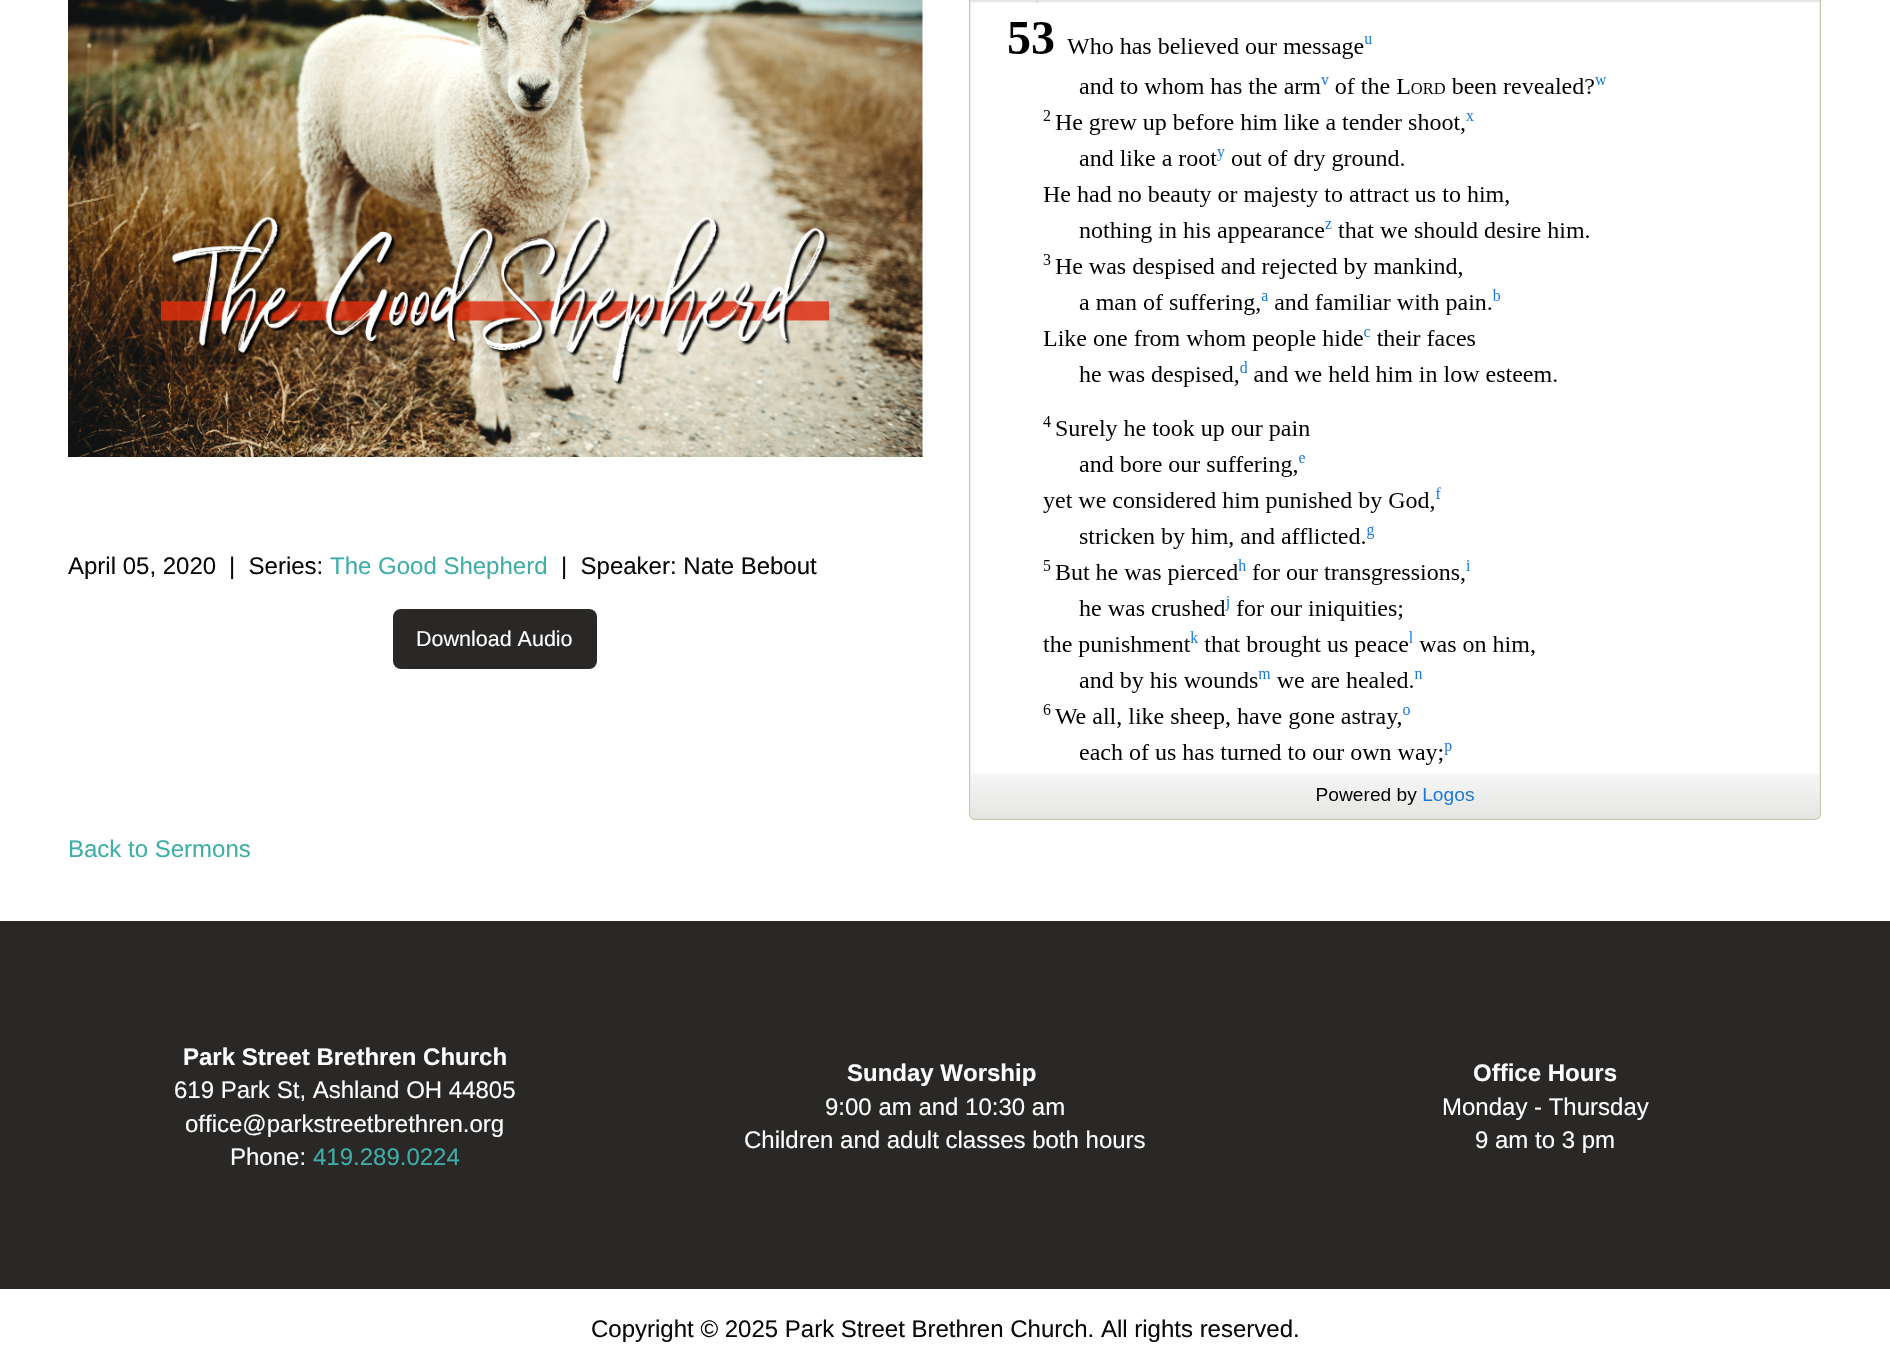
void draw(SkCanvas* canvas) {
	SkPaint fill;
	fill.setAntiAlias(true);
	auto makeFont = [&](const char* family, int weight, float size, bool italic = false) {
		SkFontStyle style(weight, SkFontStyle::kNormal_Width,
			italic ? SkFontStyle::kItalic_Slant : SkFontStyle::kUpright_Slant);
		SkFont result(fontMgr->matchFamilyStyle(family, style), size);
		result.setSubpixel(true);
		return result;
	};
	auto text = [&](const char* s, float x, float y, const SkFont& font) {
		canvas->drawString(s, x, y, font, fill);
	};
	auto box = [&](float l, float t, float r, float b) {
		canvas->drawRect(SkRect::MakeLTRB(l, t, r, b), fill);
	};
	auto roundBox = [&](float l, float t, float r, float b, float radius) {
		canvas->drawRoundRect(SkRect::MakeLTRB(l, t, r, b), radius, radius, fill);
	};
	auto picture = [&](const char* path, float l, float t, float r, float b) {
		auto image = SkImages::DeferredFromEncodedData(SkData::MakeFromFileName(path));
		canvas->drawImageRect(image, SkRect::MakeLTRB(l, t, r, b), SkSamplingOptions());
	};
	canvas->clear(0xFFFFFFFF);
	picture("image0.png", 68, 0, 923, 457);
	fill.setColor(0xFF292826);
	roundBox(393, 609, 597, 669, 8);
	picture("image1.png", 969, 0, 1821, 820);
	box(0, 921, 1890, 1289);
	auto font1 = makeFont("Liberation Sans", 400, 24);
	fill.setColor(0xFF0A0A0A);
	text("April 05, 2020", 68, 574, font1);
	text("|  Series:", 229, 574, font1);
	fill.setColor(0xFF3FAEA8);
	text("The Good Shepherd", 330, 574, font1);
	fill.setColor(0xFF0A0A0A);
	text("|  Speaker: Nate Bebout", 561, 574, font1);
	auto font2 = makeFont("Liberation Sans", 400, 21.5f);
	fill.setColor(0xFFFEFEFE);
	text("Download Audio", 416, 646, font2);
	fill.setColor(0xFF3FAEA8);
	text("Back to Sermons", 68, 857, font1);
	auto font3 = makeFont("Liberation Sans", 700, 24);
	fill.setColor(0xFFFEFEFE);
	text("Park Street Brethren Church", 183, 1065, font3);
	text("619 Park St, Ashland OH 44805", 174, 1098, font1);
	text("office@parkstreetbrethren.org", 185, 1132, font1);
	text("Phone:", 230, 1165, font1);
	fill.setColor(0xFF3FAEA8);
	text("419.289.0224", 313, 1165, font1);
	fill.setColor(0xFFFEFEFE);
	text("Sunday Worship", 847, 1081, font3);
	text("9:00 am and 10:30 am", 825, 1115, font1);
	text("Children and adult classes both hours", 744, 1148, font1);
	text("Office Hours", 1473, 1081, font3);
	text("Monday - Thursday", 1442, 1115, font1);
	text("9 am to 3 pm", 1475, 1148, font1);
	fill.setColor(0xFF0A0A0A);
	text("Copyright © 2025 Park Street Brethren Church. All rights reserved.", 591, 1337, font1);
}
